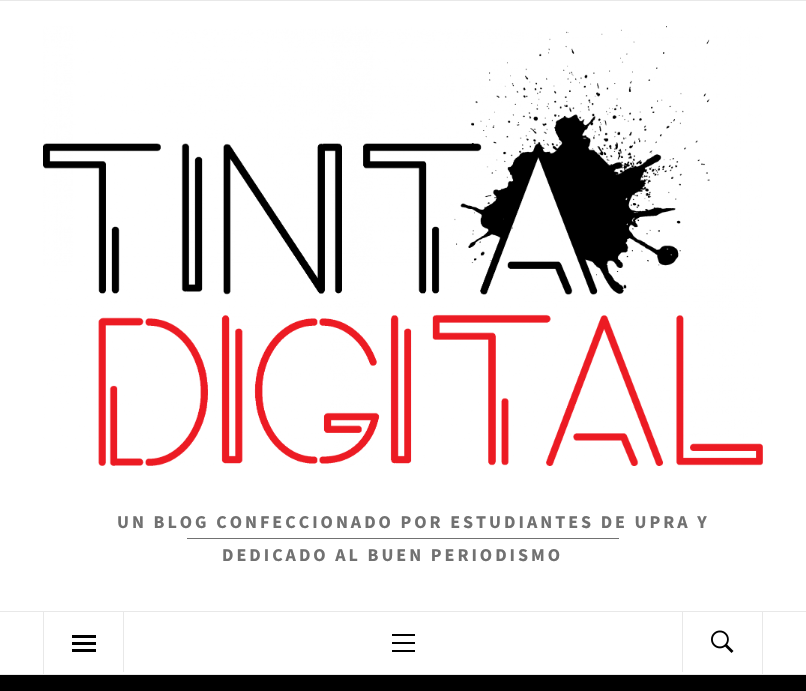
void draw(SkCanvas* canvas) {
	SkPaint fill;
	fill.setAntiAlias(true);
	auto makeFont = [&](const char* family, int weight, float size, bool italic = false) {
		SkFontStyle style(weight, SkFontStyle::kNormal_Width,
			italic ? SkFontStyle::kItalic_Slant : SkFontStyle::kUpright_Slant);
		SkFont result(fontMgr->matchFamilyStyle(family, style), size);
		result.setSubpixel(true);
		return result;
	};
	auto spacedText = [&](const char* s, float x, float y, const SkFont& font, const SkPaint& ink, float letter, float word) {
		std::vector<SkGlyphID> glyphs(font.countText(s, strlen(s), SkTextEncoding::kUTF8));
		std::vector<float> xs(glyphs.size());
		font.textToGlyphs(s, strlen(s), SkTextEncoding::kUTF8, glyphs);
		font.getXPos(glyphs, xs, x);
		float extra = 0;
		for (size_t i = 0; i < glyphs.size(); i++) {
			xs[i] += extra;
			extra += letter + word * (glyphs[i] == font.unicharToGlyph(' '));
		}
		canvas->drawTextBlob(SkTextBlob::MakeFromPosHGlyphs(glyphs, xs, y, font), 0, 0, ink);
	};
	auto box = [&](float l, float t, float r, float b) {
		canvas->drawRect(SkRect::MakeLTRB(l, t, r, b), fill);
	};
	auto picture = [&](const char* path, float l, float t, float r, float b) {
		auto image = SkImages::DeferredFromEncodedData(SkData::MakeFromFileName(path));
		canvas->drawImageRect(image, SkRect::MakeLTRB(l, t, r, b), SkSamplingOptions());
	};
	canvas->clear(0xFFFFFFFF);
	fill.setColor(0xFFE8E8E8);
	box(0, 0, 806, 1);
	picture("image0.png", 43, 26, 763, 466);
	fill.setColor(0xFF717171);
	box(187, 538, 619, 539);
	fill.setColor(0xFFE8E8E8);
	box(0, 611, 806, 612);
	box(0, 674, 806, 675);
	box(762, 612, 763, 674);
	box(43, 612, 44, 674);
	box(123, 612, 124, 672);
	fill.setColor(0xFF000000);
	box(72, 635, 96, 638);
	box(72, 642, 96, 645);
	box(72, 649, 96, 652);
	box(392, 642, 415, 644);
	box(392, 634, 415, 636);
	box(392, 650, 415, 652);
	fill.setColor(0xFFE8E8E8);
	box(682, 612, 683, 672);
	picture("image1.png", 711, 630, 734, 653);
	fill.setColor(0xFF000000);
	box(0, 675, 806, 691);
	auto font1 = makeFont("Source Sans Pro", 700, 18);
	fill.setColor(0xFF717171);
	spacedText("UN BLOG CONFECCIONADO POR ESTUDIANTES DE UPRA Y", 117, 528, font1, fill, 3, 0);
	spacedText("DEDICADO AL BUEN PERIODISMO", 222, 561, font1, fill, 3, 0);
}
